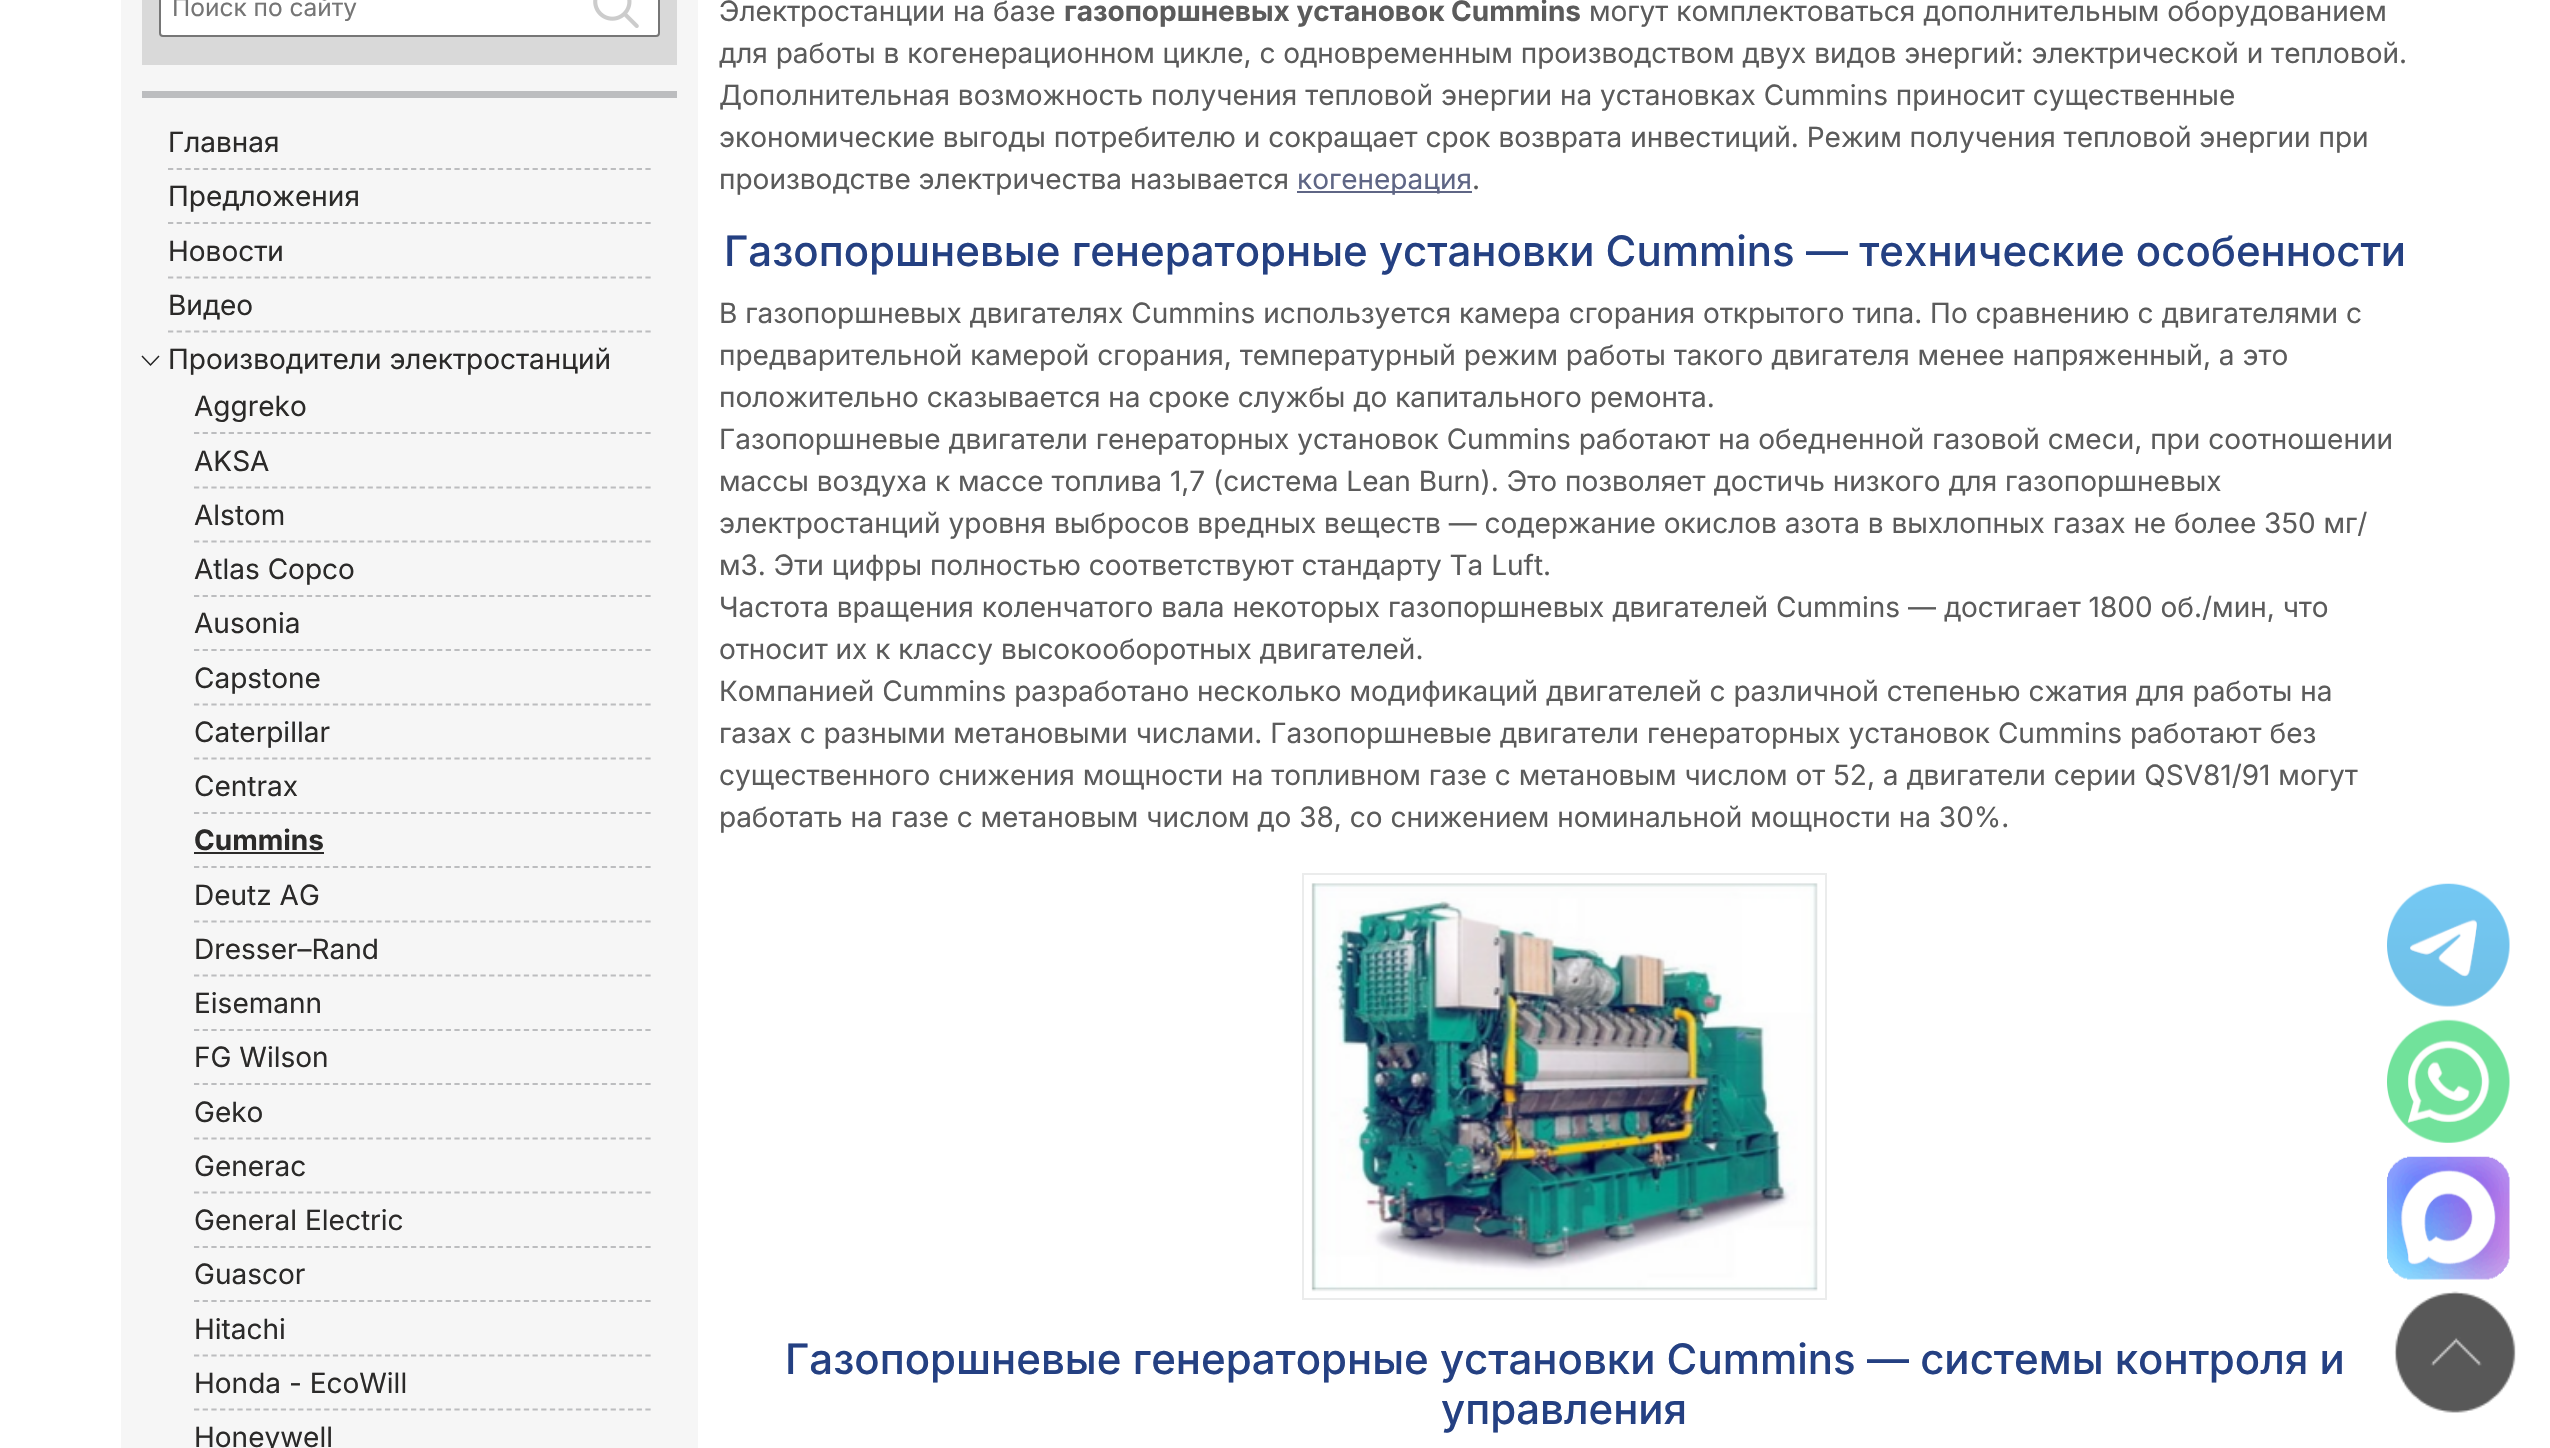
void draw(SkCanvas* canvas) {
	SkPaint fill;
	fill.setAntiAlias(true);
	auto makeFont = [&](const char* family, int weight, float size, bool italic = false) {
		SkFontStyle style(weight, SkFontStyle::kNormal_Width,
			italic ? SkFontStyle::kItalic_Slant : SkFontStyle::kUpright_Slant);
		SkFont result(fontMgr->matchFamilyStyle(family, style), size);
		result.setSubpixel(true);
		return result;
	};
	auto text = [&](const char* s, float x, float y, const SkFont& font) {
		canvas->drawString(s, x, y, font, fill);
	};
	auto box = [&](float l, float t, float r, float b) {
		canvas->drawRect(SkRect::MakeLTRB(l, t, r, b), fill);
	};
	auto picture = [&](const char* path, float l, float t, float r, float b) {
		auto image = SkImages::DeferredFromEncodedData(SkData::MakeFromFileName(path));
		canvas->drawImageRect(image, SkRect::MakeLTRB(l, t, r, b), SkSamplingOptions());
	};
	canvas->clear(0xFFFFFFFF);
	fill.setColor(0xFFF6F6F6);
	box(121, 0, 698, 1448);
	fill.setColor(0xFFD9D9D9);
	box(142, 0, 677, 65);
	fill.setColor(0xFFFFFFFF);
	canvas->drawRoundRect(SkRect::MakeLTRB(160, -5, 659, 36), 3, 3, fill);
	fill.setStyle(SkPaint::kStroke_Style);
	fill.setStrokeWidth(2);
	fill.setColor(0xFF767676);
	canvas->drawRoundRect(SkRect::MakeLTRB(160, -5, 659, 36), 3, 3, fill);
	picture("image0.png", 593, 0, 639, 28);
	fill.setStyle(SkPaint::kFill_Style);
	fill.setColor(0xFFBCBDBF);
	box(142, 91, 677, 98);
	fill.setStyle(SkPaint::kStroke_Style);
	fill.setStrokeWidth(1.8f);
	fill.setPathEffect(SkDashPathEffect::Make({{5.25f, 3.43f}}, 0));
	canvas->drawPath(SkPathBuilder().moveTo(168, 169).lineTo(651, 169).detach(), fill);
	fill.setPathEffect(nullptr);
	fill.setPathEffect(SkDashPathEffect::Make({{5.25f, 3.43f}}, 0));
	canvas->drawPath(SkPathBuilder().moveTo(168, 223).lineTo(651, 223).detach(), fill);
	fill.setPathEffect(nullptr);
	fill.setPathEffect(SkDashPathEffect::Make({{5.25f, 3.43f}}, 0));
	canvas->drawPath(SkPathBuilder().moveTo(168, 277.5f).lineTo(651, 277.5f).detach(), fill);
	fill.setPathEffect(nullptr);
	fill.setPathEffect(SkDashPathEffect::Make({{5.25f, 3.43f}}, 0));
	canvas->drawPath(SkPathBuilder().moveTo(168, 331.5f).lineTo(651, 331.5f).detach(), fill);
	fill.setPathEffect(nullptr);
	fill.setStrokeWidth(1.5f);
	fill.setColor(0xFF222222);
	canvas->drawPath(SkPathBuilder().moveTo(159, 356).lineTo(150.5f, 365).lineTo(142, 356).detach(), fill);
	fill.setStrokeWidth(1.8f);
	fill.setColor(0xFFBCBDBF);
	fill.setPathEffect(SkDashPathEffect::Make({{5.25f, 3.43f}}, 0));
	canvas->drawPath(SkPathBuilder().moveTo(194, 433).lineTo(651, 433).detach(), fill);
	fill.setPathEffect(nullptr);
	fill.setPathEffect(SkDashPathEffect::Make({{5.25f, 3.43f}}, 0));
	canvas->drawPath(SkPathBuilder().moveTo(194, 487.5f).lineTo(651, 487.5f).detach(), fill);
	fill.setPathEffect(nullptr);
	fill.setPathEffect(SkDashPathEffect::Make({{5.25f, 3.43f}}, 0));
	canvas->drawPath(SkPathBuilder().moveTo(194, 541.5f).lineTo(651, 541.5f).detach(), fill);
	fill.setPathEffect(nullptr);
	fill.setPathEffect(SkDashPathEffect::Make({{5.25f, 3.43f}}, 0));
	canvas->drawPath(SkPathBuilder().moveTo(194, 596).lineTo(651, 596).detach(), fill);
	fill.setPathEffect(nullptr);
	fill.setPathEffect(SkDashPathEffect::Make({{5.25f, 3.43f}}, 0));
	canvas->drawPath(SkPathBuilder().moveTo(194, 650).lineTo(651, 650).detach(), fill);
	fill.setPathEffect(nullptr);
	fill.setPathEffect(SkDashPathEffect::Make({{5.25f, 3.43f}}, 0));
	canvas->drawPath(SkPathBuilder().moveTo(194, 704.5f).lineTo(651, 704.5f).detach(), fill);
	fill.setPathEffect(nullptr);
	fill.setPathEffect(SkDashPathEffect::Make({{5.25f, 3.43f}}, 0));
	canvas->drawPath(SkPathBuilder().moveTo(194, 758.5f).lineTo(651, 758.5f).detach(), fill);
	fill.setPathEffect(nullptr);
	fill.setPathEffect(SkDashPathEffect::Make({{5.25f, 3.43f}}, 0));
	canvas->drawPath(SkPathBuilder().moveTo(194, 813).lineTo(651, 813).detach(), fill);
	fill.setPathEffect(nullptr);
	fill.setPathEffect(SkDashPathEffect::Make({{5.25f, 3.43f}}, 0));
	canvas->drawPath(SkPathBuilder().moveTo(194, 867).lineTo(651, 867).detach(), fill);
	fill.setPathEffect(nullptr);
	fill.setStyle(SkPaint::kFill_Style);
	fill.setColor(0xFF2B2A29);
	box(194, 852, 324, 854);
	fill.setStyle(SkPaint::kStroke_Style);
	fill.setColor(0xFFBCBDBF);
	fill.setPathEffect(SkDashPathEffect::Make({{5.25f, 3.43f}}, 0));
	canvas->drawPath(SkPathBuilder().moveTo(194, 921.5f).lineTo(651, 921.5f).detach(), fill);
	fill.setPathEffect(nullptr);
	fill.setPathEffect(SkDashPathEffect::Make({{5.25f, 3.43f}}, 0));
	canvas->drawPath(SkPathBuilder().moveTo(194, 975.5f).lineTo(651, 975.5f).detach(), fill);
	fill.setPathEffect(nullptr);
	fill.setPathEffect(SkDashPathEffect::Make({{5.25f, 3.43f}}, 0));
	canvas->drawPath(SkPathBuilder().moveTo(194, 1030).lineTo(651, 1030).detach(), fill);
	fill.setPathEffect(nullptr);
	fill.setPathEffect(SkDashPathEffect::Make({{5.25f, 3.43f}}, 0));
	canvas->drawPath(SkPathBuilder().moveTo(194, 1084).lineTo(651, 1084).detach(), fill);
	fill.setPathEffect(nullptr);
	fill.setPathEffect(SkDashPathEffect::Make({{5.25f, 3.43f}}, 0));
	canvas->drawPath(SkPathBuilder().moveTo(194, 1138.5f).lineTo(651, 1138.5f).detach(), fill);
	fill.setPathEffect(nullptr);
	fill.setPathEffect(SkDashPathEffect::Make({{5.25f, 3.43f}}, 0));
	canvas->drawPath(SkPathBuilder().moveTo(194, 1192.5f).lineTo(651, 1192.5f).detach(), fill);
	fill.setPathEffect(nullptr);
	fill.setPathEffect(SkDashPathEffect::Make({{5.25f, 3.43f}}, 0));
	canvas->drawPath(SkPathBuilder().moveTo(194, 1247).lineTo(651, 1247).detach(), fill);
	fill.setPathEffect(nullptr);
	fill.setPathEffect(SkDashPathEffect::Make({{5.25f, 3.43f}}, 0));
	canvas->drawPath(SkPathBuilder().moveTo(194, 1301).lineTo(651, 1301).detach(), fill);
	fill.setPathEffect(nullptr);
	fill.setPathEffect(SkDashPathEffect::Make({{5.25f, 3.43f}}, 0));
	canvas->drawPath(SkPathBuilder().moveTo(194, 1355.5f).lineTo(651, 1355.5f).detach(), fill);
	fill.setPathEffect(nullptr);
	fill.setPathEffect(SkDashPathEffect::Make({{5.25f, 3.43f}}, 0));
	canvas->drawPath(SkPathBuilder().moveTo(194, 1409.5f).lineTo(651, 1409.5f).detach(), fill);
	fill.setPathEffect(nullptr);
	fill.setStyle(SkPaint::kFill_Style);
	fill.setColor(0xFF5F6685);
	box(1297, 191, 1472, 193);
	fill.setStyle(SkPaint::kStroke_Style);
	fill.setStrokeWidth(2);
	fill.setColor(0xFFEBECEC);
	canvas->drawRect(SkRect::MakeLTRB(1303, 874, 1826, 1299), fill);
	picture("image1.png", 1311, 883, 1818, 1292);
	picture("image2.png", 2387, 883, 2510, 1007);
	picture("image3.png", 2387, 1019, 2510, 1143);
	picture("image4.png", 2387, 1156, 2510, 1280);
	picture("image5.png", 2394, 1291, 2516, 1413);
	auto font1 = makeFont("Inter", 400, 24.5f);
	fill.setStyle(SkPaint::kFill_Style);
	fill.setColor(0xFF757575);
	text("Поиск по сайту", 172, 16, font1);
	auto font2 = makeFont("Inter", 400, 28);
	fill.setColor(0xFF2B2A29);
	text("Главная", 168, 152, font2);
	text("Предложения", 168, 206, font2);
	text("Новости", 168, 261, font2);
	text("Видео", 168, 315, font2);
	text("Производители электростанций", 168, 369, font2);
	text("Aggreko", 194, 416, font2);
	text("AKSA", 194, 471, font2);
	text("Alstom", 194, 525, font2);
	text("Atlas Copco", 194, 579, font2);
	text("Ausonia", 194, 633, font2);
	text("Capstone", 194, 688, font2);
	text("Caterpillar", 194, 742, font2);
	text("Centrax", 194, 796, font2);
	auto font3 = makeFont("Inter", 700, 28);
	text("Cummins", 194, 850, font3);
	text("Deutz AG", 194, 905, font2);
	text("Dresser–Rand", 194, 959, font2);
	text("Eisemann", 194, 1013, font2);
	text("FG Wilson", 194, 1067, font2);
	text("Geko", 194, 1122, font2);
	text("Generac", 194, 1176, font2);
	text("General Electric", 194, 1230, font2);
	text("Guascor", 194, 1284, font2);
	text("Hitachi", 194, 1339, font2);
	text("Honda - EcoWill", 194, 1393, font2);
	text("Honeywell", 194, 1447, font2);
	fill.setColor(0xFF5B5B5B);
	text("Электростанции на базе", 719, 21, font2);
	text("газопоршневых установок Cummins", 1064, 21, font3);
	text("могут комплектоваться дополнительным оборудованием", 1589, 21, font2);
	text("для работы в когенерационном цикле, с одновременным производством двух видов энергий: электрической и тепловой.", 719, 63, font2);
	text("Дополнительная возможность получения тепловой энергии на установках Cummins приносит существенные", 719, 105, font2);
	text("экономические выгоды потребителю и сокращает срок возврата инвестиций. Режим получения тепловой энергии при", 719, 147, font2);
	text("производстве электричества называется", 719, 189, font2);
	fill.setColor(0xFF5F6685);
	text("когенерация", 1297, 189, font2);
	fill.setColor(0xFF5B5B5B);
	text(".", 1472, 189, font2);
	auto font4 = makeFont("Inter", 500, 42);
	fill.setColor(0xFF244082);
	text("Газопоршневые генераторные установки Cummins — технические особенности", 724, 266, font4);
	fill.setColor(0xFF5B5B5B);
	text("В газопоршневых двигателях Cummins используется камера сгорания открытого типа. По сравнению с двигателями с", 719, 323, font2);
	text("предварительной камерой сгорания, температурный режим работы такого двигателя менее напряженный, а это", 719, 365, font2);
	text("положительно сказывается на сроке службы до капитального ремонта.", 719, 407, font2);
	text("Газопоршневые двигатели генераторных установок Cummins работают на обедненной газовой смеси, при соотношении", 719, 449, font2);
	text("массы воздуха к массе топлива 1,7 (система Lean Burn). Это позволяет достичь низкого для газопоршневых", 719, 491, font2);
	text("электростанций уровня выбросов вредных веществ — содержание окислов азота в выхлопных газах не более 350 мг/", 719, 533, font2);
	text("м3. Эти цифры полностью соответствуют стандарту Ta Luft.", 719, 575, font2);
	text("Частота вращения коленчатого вала некоторых газопоршневых двигателей Cummins — достигает 1800 об./мин, что", 719, 617, font2);
	text("относит их к классу высокооборотных двигателей.", 719, 659, font2);
	text("Компанией Cummins разработано несколько модификаций двигателей с различной степенью сжатия для работы на", 719, 701, font2);
	text("газах с разными метановыми числами. Газопоршневые двигатели генераторных установок Cummins работают без", 719, 743, font2);
	text("существенного снижения мощности на топливном газе с метановым числом от 52, а двигатели серии QSV81/91 могут", 719, 785, font2);
	text("работать на газе с метановым числом до 38, со снижением номинальной мощности на 30%.", 719, 827, font2);
	fill.setColor(0xFF244082);
	text("Газопоршневые генераторные установки Cummins — системы контроля и", 785, 1374, font4);
	text("управления", 1441, 1424, font4);
}
